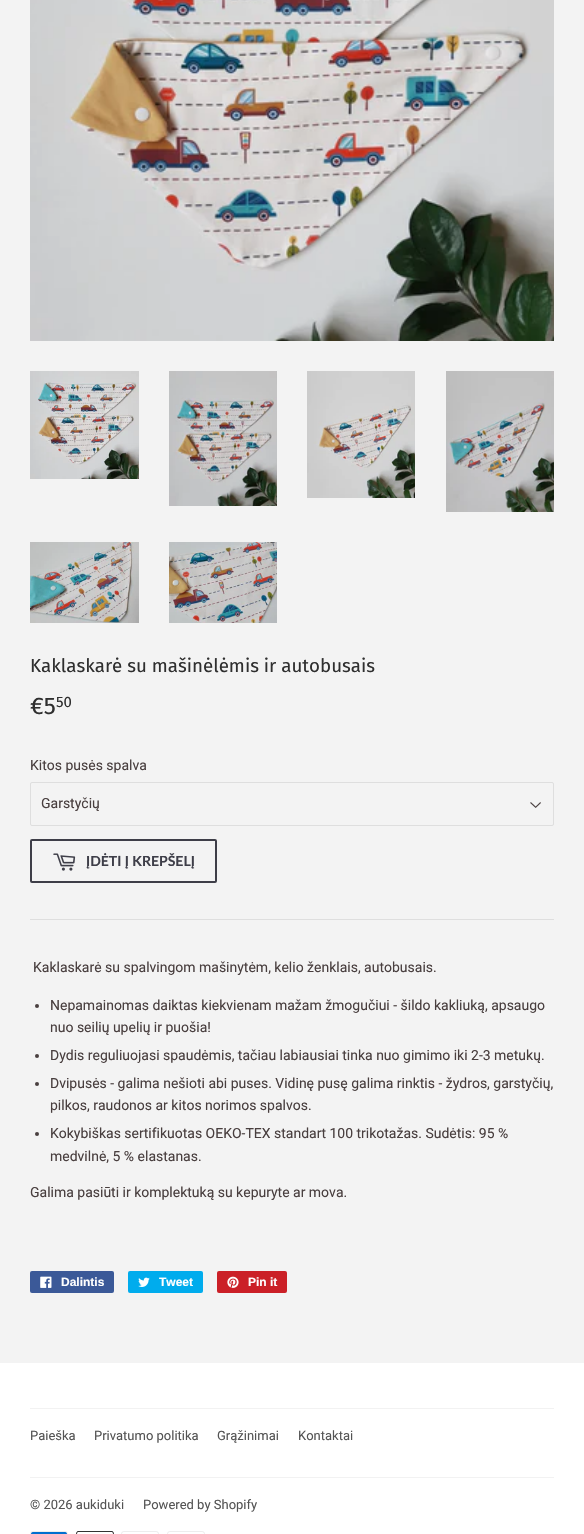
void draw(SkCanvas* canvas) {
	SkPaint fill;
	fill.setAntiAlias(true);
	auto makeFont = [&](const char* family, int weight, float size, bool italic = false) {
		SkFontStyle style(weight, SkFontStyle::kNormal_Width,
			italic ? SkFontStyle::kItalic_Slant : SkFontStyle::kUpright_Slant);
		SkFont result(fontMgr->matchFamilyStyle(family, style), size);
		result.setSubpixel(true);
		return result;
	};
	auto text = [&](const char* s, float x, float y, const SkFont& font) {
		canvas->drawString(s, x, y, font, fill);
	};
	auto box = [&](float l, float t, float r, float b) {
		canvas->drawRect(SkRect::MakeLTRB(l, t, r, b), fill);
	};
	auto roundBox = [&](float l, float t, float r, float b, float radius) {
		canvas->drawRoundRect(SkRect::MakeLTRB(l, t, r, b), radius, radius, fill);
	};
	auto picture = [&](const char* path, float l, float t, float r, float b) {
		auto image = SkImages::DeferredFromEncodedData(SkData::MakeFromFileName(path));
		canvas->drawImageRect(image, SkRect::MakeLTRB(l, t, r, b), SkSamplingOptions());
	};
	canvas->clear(0xFFF3F3F3);
	picture("image0.png", 30, 0, 554, 341);
	picture("image1.png", 30, 371, 139, 479);
	picture("image2.png", 169, 371, 277, 506);
	picture("image3.png", 307, 371, 415, 498);
	picture("image4.png", 446, 371, 554, 512);
	picture("image5.png", 30, 542, 139, 623);
	picture("image6.png", 169, 542, 277, 623);
	picture("image7.png", 530, 802, 541, 808);
	fill.setStyle(SkPaint::kStroke_Style);
	fill.setStrokeWidth(1);
	fill.setColor(0xFFDEDEDE);
	canvas->drawRoundRect(SkRect::MakeLTRB(30.5f, 782.5f, 553.5f, 825.5f), 1.5f, 1.5f, fill);
	fill.setStrokeWidth(2);
	fill.setColor(0xFF3E3E48);
	canvas->drawRoundRect(SkRect::MakeLTRB(31, 840, 216, 882), 1, 1, fill);
	picture("image8.png", 53, 853, 76, 871);
	fill.setStyle(SkPaint::kFill_Style);
	fill.setColor(0xFFDEDEDE);
	box(30, 919, 554, 920);
	fill.setColor(0xFF493F3F);
	canvas->drawCircle(37, 1006, 2, fill);
	canvas->drawCircle(37, 1056, 2, fill);
	canvas->drawCircle(37, 1084, 2, fill);
	canvas->drawCircle(37, 1134, 2, fill);
	fill.setColor(0xFF3B5998);
	roundBox(30, 1271, 114, 1293, 2);
	picture("image9.png", 40, 1276, 52, 1288);
	fill.setColor(0xFF00ACED);
	roundBox(128, 1271, 203, 1293, 2);
	picture("image10.png", 138, 1277, 150, 1287);
	fill.setColor(0xFFCB2027);
	roundBox(217, 1271, 287, 1293, 2);
	picture("image11.png", 227, 1276, 239, 1288);
	fill.setColor(0xFFFFFFFF);
	box(0, 1363, 584, 1534);
	fill.setColor(0xFFF2F2F2);
	box(30, 1408, 554, 1409);
	box(30, 1477, 554, 1478);
	picture("image12.png", 30, 1531, 68, 1534);
	picture("image13.png", 76, 1531, 114, 1534);
	picture("image14.png", 121, 1531, 159, 1534);
	picture("image14.png", 167, 1531, 205, 1534);
	auto font1 = makeFont("Fira Sans", 400, 18.7f);
	fill.setColor(0xFF2F2F2F);
	text("Kaklaskarė su mašinėlėmis ir autobusais", 30, 672, font1);
	auto font2 = makeFont("Fira Sans", 400, 24);
	text("€5", 30, 714, font2);
	auto font3 = makeFont("Fira Sans", 400, 15);
	text("50", 56, 707, font3);
	auto font4 = makeFont("Roboto", 400, 14);
	fill.setColor(0xFF493F3F);
	text("Kitos pusės spalva", 30, 770, font4);
	text("Garstyčių", 41, 808, font4);
	auto font5 = makeFont("Lato", 700, 14);
	fill.setColor(0xFF3E3E48);
	text("ĮDĖTI Į KREPŠELĮ", 86, 866, font5);
	fill.setColor(0xFF493F3F);
	text("Kaklaskarė su spalvingom mašinytėm, kelio ženklais, autobusais.", 33, 972, font4);
	text("Nepamainomas daiktas kiekvienam mažam žmogučiui - šildo kakliuką, apsaugo", 50, 1010, font4);
	text("nuo seilių upelių ir puošia!", 50, 1032, font4);
	text("Dydis reguliuojasi spaudėmis, tačiau labiausiai tinka nuo gimimo iki 2-3 metukų.", 50, 1060, font4);
	text("Dvipusės - galima nešioti abi puses. Vidinę pusę galima rinktis - žydros, garstyčių,", 50, 1088, font4);
	text("pilkos, raudonos ar kitos norimos spalvos.", 50, 1110, font4);
	text("Kokybiškas sertifikuotas OEKO-TEX standart 100 trikotažas. Sudėtis: 95 %", 50, 1138, font4);
	text("medvilnė, 5 % elastanas.", 50, 1161, font4);
	text("Galima pasiūti ir komplektuką su kepuryte ar mova.", 30, 1197, font4);
	auto font6 = makeFont("Liberation Sans", 700, 12);
	fill.setColor(0xFFFFFFFF);
	text("Dalintis", 61, 1286, font6);
	text("Tweet", 159, 1286, font6);
	text("Pin it", 248, 1286, font6);
	auto font7 = makeFont("Roboto", 400, 13);
	fill.setColor(0xFF545454);
	text("Paieška", 30, 1440, font7);
	text("Privatumo politika", 94, 1440, font7);
	text("Grąžinimai", 217, 1440, font7);
	text("Kontaktai", 298, 1440, font7);
	text("© 2026 aukiduki", 30, 1509, font7);
	text("Powered by Shopify", 143, 1509, font7);
}
